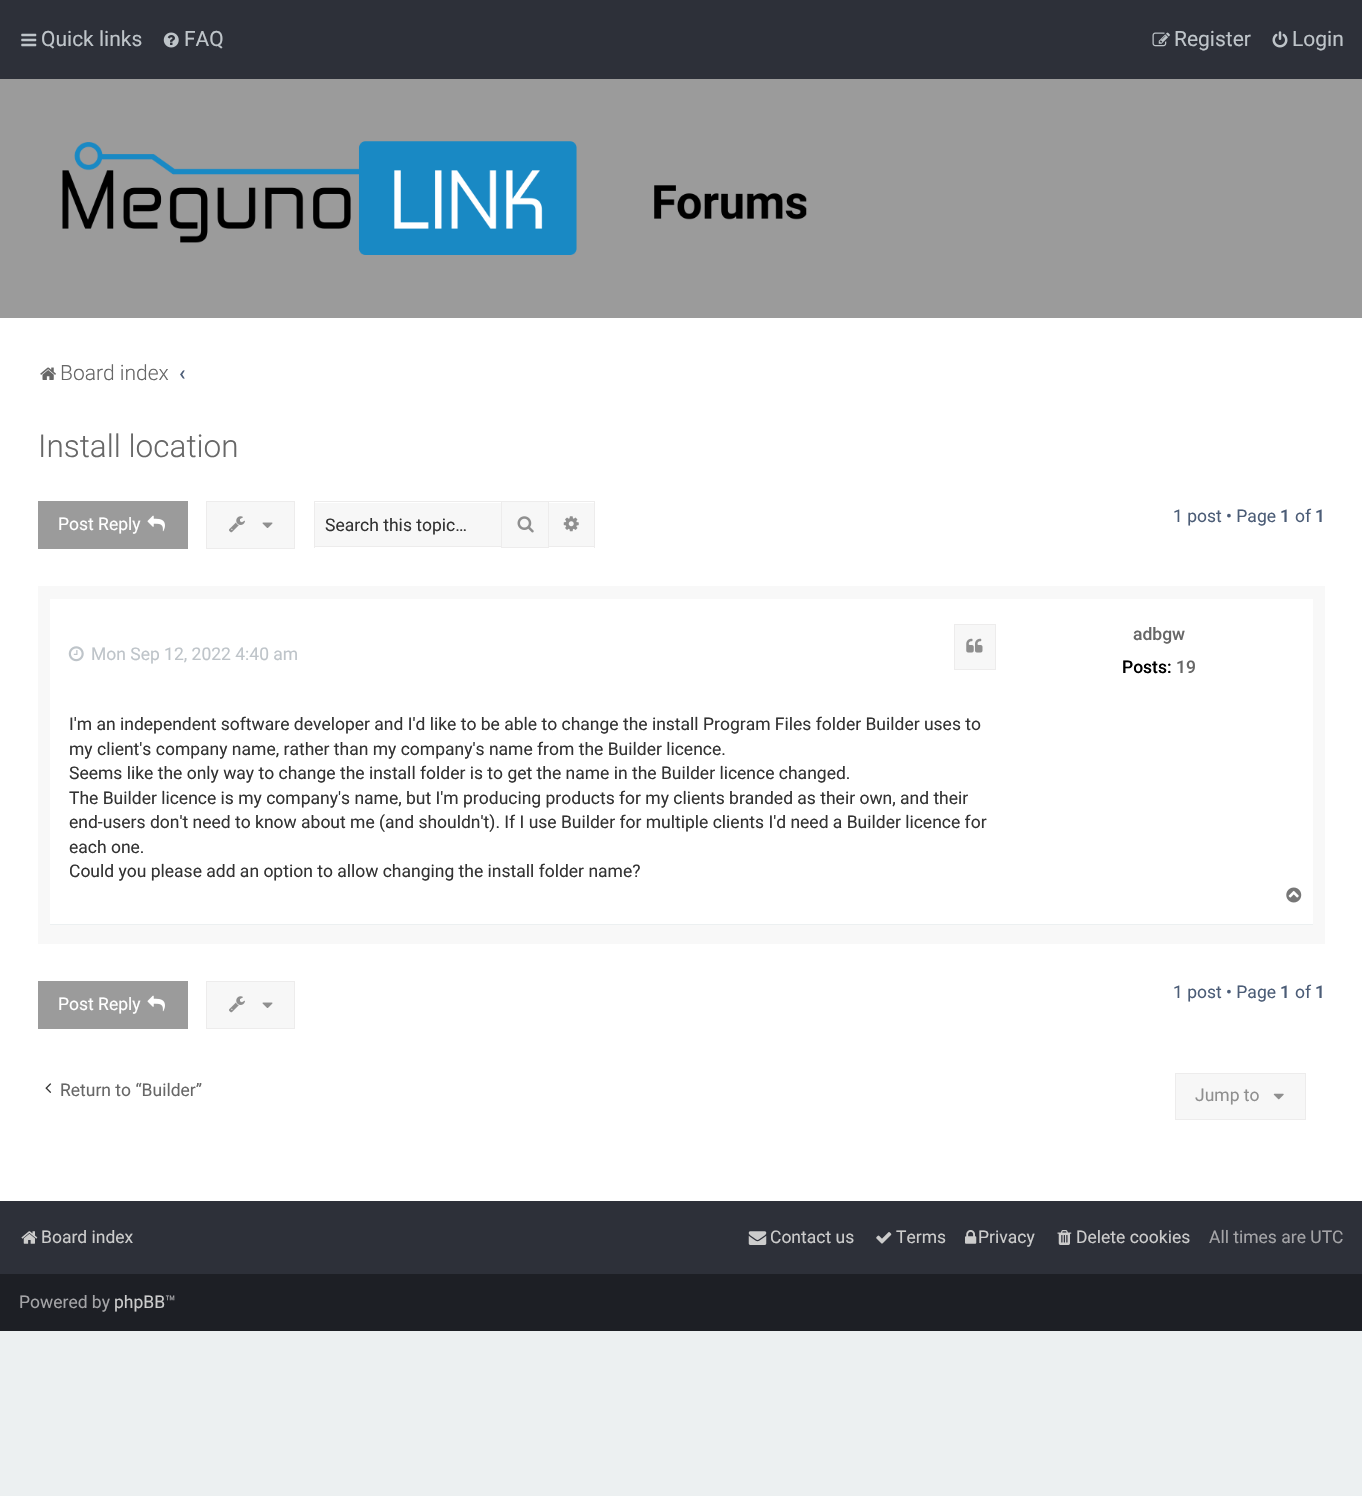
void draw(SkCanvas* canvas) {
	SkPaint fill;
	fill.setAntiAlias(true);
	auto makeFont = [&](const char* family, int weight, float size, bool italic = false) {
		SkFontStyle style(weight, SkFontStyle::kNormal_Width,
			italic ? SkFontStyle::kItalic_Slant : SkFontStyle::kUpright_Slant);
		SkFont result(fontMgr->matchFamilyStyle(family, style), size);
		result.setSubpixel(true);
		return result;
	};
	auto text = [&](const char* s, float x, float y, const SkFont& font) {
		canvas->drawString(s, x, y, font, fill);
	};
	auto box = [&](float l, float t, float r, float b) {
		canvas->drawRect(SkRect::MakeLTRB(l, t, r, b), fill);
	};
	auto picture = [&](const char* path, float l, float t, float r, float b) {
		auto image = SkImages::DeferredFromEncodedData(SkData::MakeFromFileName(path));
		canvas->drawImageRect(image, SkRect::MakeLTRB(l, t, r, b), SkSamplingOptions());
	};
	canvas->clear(0xFFECF0F1);
	fill.setColor(0xFF2D3039);
	box(0, 0, 1362, 79);
	picture("image0.png", 21, 33, 37, 47);
	picture("image1.png", 163, 32, 179, 48);
	picture("image2.png", 1152, 32, 1170, 47);
	picture("image3.png", 1272, 31, 1288, 48);
	fill.setColor(0xFF9B9B9B);
	box(0, 79, 1362, 318);
	picture("image4.png", 62, 141, 807, 255);
	fill.setColor(0xFFFFFFFF);
	box(0, 318, 1362, 1201);
	picture("image5.png", 40, 367, 56, 380);
	fill.setColor(0xFF9B9B9B);
	box(38, 501, 188, 549);
	picture("image6.png", 147, 515, 165, 532);
	fill.setColor(0xFFF7F7F7);
	canvas->drawRect(SkRect::MakeLTRB(206.5f, 501.5f, 294.5f, 548.5f), fill);
	fill.setStyle(SkPaint::kStroke_Style);
	fill.setStrokeWidth(1);
	fill.setColor(0xFFEDECEC);
	canvas->drawRect(SkRect::MakeLTRB(206.5f, 501.5f, 294.5f, 548.5f), fill);
	picture("image7.png", 229, 516, 245, 533);
	picture("image8.png", 262, 522, 273, 528);
	fill.setStyle(SkPaint::kFill_Style);
	fill.setColor(0xFFF7F7F7);
	box(315, 503, 501, 546);
	fill.setColor(0xFFEDECEC);
	box(314, 501, 501, 502);
	box(314, 546, 501, 547);
	box(314, 501, 315, 548);
	fill.setColor(0xFFF7F7F7);
	canvas->drawRect(SkRect::MakeLTRB(501.5f, 501.5f, 548.5f, 547.5f), fill);
	fill.setStyle(SkPaint::kStroke_Style);
	fill.setColor(0xFFEDECEC);
	canvas->drawRect(SkRect::MakeLTRB(501.5f, 501.5f, 548.5f, 547.5f), fill);
	picture("image9.png", 517, 516, 534, 533);
	fill.setStyle(SkPaint::kFill_Style);
	fill.setColor(0xFFF7F7F7);
	box(549, 503, 594, 546);
	fill.setColor(0xFFEDECEC);
	box(549, 501, 595, 502);
	box(594, 501, 595, 548);
	box(549, 546, 595, 547);
	picture("image10.png", 563, 516, 579, 532);
	fill.setColor(0xFFF8F8F8);
	box(38, 586, 1325, 944);
	fill.setColor(0xFFFFFFFF);
	box(50, 599, 1313, 924);
	fill.setColor(0xFFECF0F1);
	box(50, 924, 1313, 925);
	picture("image11.png", 68, 646, 84, 662);
	fill.setColor(0xFFF7F7F7);
	canvas->drawRect(SkRect::MakeLTRB(954.5f, 624.5f, 995.5f, 669.5f), fill);
	fill.setStyle(SkPaint::kStroke_Style);
	fill.setColor(0xFFEDECEC);
	canvas->drawRect(SkRect::MakeLTRB(954.5f, 624.5f, 995.5f, 669.5f), fill);
	picture("image12.png", 966, 638, 983, 653);
	picture("image13.png", 1286, 887, 1302, 903);
	fill.setStyle(SkPaint::kFill_Style);
	fill.setColor(0xFFF7F7F7);
	canvas->drawRect(SkRect::MakeLTRB(206.5f, 981.5f, 294.5f, 1028.5f), fill);
	fill.setStyle(SkPaint::kStroke_Style);
	fill.setColor(0xFFEDECEC);
	canvas->drawRect(SkRect::MakeLTRB(206.5f, 981.5f, 294.5f, 1028.5f), fill);
	picture("image7.png", 229, 996, 245, 1013);
	picture("image8.png", 262, 1002, 273, 1008);
	fill.setStyle(SkPaint::kFill_Style);
	fill.setColor(0xFF9B9B9B);
	box(38, 981, 188, 1029);
	picture("image6.png", 147, 995, 165, 1012);
	picture("image14.png", 45, 1083, 52, 1093);
	fill.setColor(0xFFF7F7F7);
	canvas->drawRect(SkRect::MakeLTRB(1175.5f, 1073.5f, 1305.5f, 1119.5f), fill);
	fill.setStyle(SkPaint::kStroke_Style);
	fill.setColor(0xFFEDECEC);
	canvas->drawRect(SkRect::MakeLTRB(1175.5f, 1073.5f, 1305.5f, 1119.5f), fill);
	picture("image15.png", 1273, 1093, 1284, 1100);
	fill.setStyle(SkPaint::kFill_Style);
	fill.setColor(0xFF2D3039);
	box(0, 1201, 1362, 1274);
	picture("image16.png", 21, 1231, 38, 1244);
	picture("image17.png", 748, 1231, 767, 1245);
	picture("image18.png", 876, 1232, 892, 1244);
	picture("image19.png", 965, 1230, 977, 1244);
	picture("image20.png", 1057, 1230, 1072, 1245);
	fill.setColor(0xFF1D1F25);
	box(0, 1274, 1362, 1331);
	auto font1 = makeFont("Roboto", 400, 21);
	fill.setColor(0xFFBEC4C9);
	text("Quick links", 41, 46, font1);
	text("FAQ", 184, 46, font1);
	text("Register", 1174, 46, font1);
	text("Login", 1292, 46, font1);
	auto font2 = makeFont("Roboto", 300, 21);
	fill.setColor(0xFF676767);
	text("Board index", 60, 380, font2);
	auto font3 = makeFont("Roboto", 500, 21);
	fill.setColor(0xFF4C5D77);
	text("‹", 179, 380, font3);
	auto font4 = makeFont("Roboto", 300, 31.5f);
	fill.setColor(0xFF676767);
	text("Install location", 38, 457, font4);
	auto font5 = makeFont("Roboto", 400, 17.5f);
	fill.setColor(0xFFFFFFFF);
	text("Post Reply", 58, 530, font5);
	fill.setColor(0xFF333333);
	text("Search this topic…", 325, 531, font5);
	fill.setColor(0xFF4C5D77);
	text("1 post • Page", 1173, 522, font5);
	auto font6 = makeFont("Roboto", 500, 17.5f);
	text("1", 1280, 522, font6);
	text("of", 1295, 522, font5);
	text("1", 1315, 522, font6);
	fill.setColor(0xFFBEC4C9);
	text("Mon Sep 12, 2022 4:40 am", 91, 660, font5);
	fill.setColor(0xFF333333);
	text("I'm an independent software developer and I'd like to be able to change the install Program Files folder Builder uses to", 69, 730, font5);
	text("my client's company name, rather than my company's name from the Builder licence.", 69, 755, font5);
	text("Seems like the only way to change the install folder is to get the name in the Builder licence changed.", 69, 779, font5);
	text("The Builder licence is my company's name, but I'm producing products for my clients branded as their own, and their", 69, 804, font5);
	text("end-users don't need to know about me (and shouldn't). If I use Builder for multiple clients I'd need a Builder licence for", 69, 828, font5);
	text("each one.", 69, 853, font5);
	text("Could you please add an option to allow changing the install folder name?", 69, 877, font5);
	fill.setColor(0xFF676767);
	text("adbgw", 1133, 640, font6);
	fill.setColor(0xFF000000);
	text("Posts:", 1122, 673, font6);
	fill.setColor(0xFF676767);
	text("19", 1176, 673, font6);
	fill.setColor(0xFF4C5D77);
	text("1 post • Page", 1173, 998, font5);
	text("1", 1280, 998, font6);
	text("of", 1295, 998, font5);
	text("1", 1315, 998, font6);
	fill.setColor(0xFFFFFFFF);
	text("Post Reply", 58, 1010, font5);
	fill.setColor(0xFF676767);
	text("Return to “Builder”", 60, 1096, font5);
	fill.setColor(0xFF8F8F8F);
	text("Jump to", 1195, 1101, font5);
	fill.setColor(0xFFCCCCCC);
	text("Board index", 41, 1243, font5);
	text("Contact us", 770, 1243, font5);
	text("Terms", 896, 1243, font5);
	text("Privacy", 978, 1243, font5);
	text("Delete cookies", 1076, 1243, font5);
	fill.setColor(0xFFA4A4A7);
	text("All times are UTC", 1209, 1243, font5);
	text("Powered by", 19, 1308, font5);
	fill.setColor(0xFFCCCCCC);
	text("phpBB", 114, 1308, font5);
	fill.setColor(0xFFA4A4A7);
	text("™", 165, 1308, font5);
}
